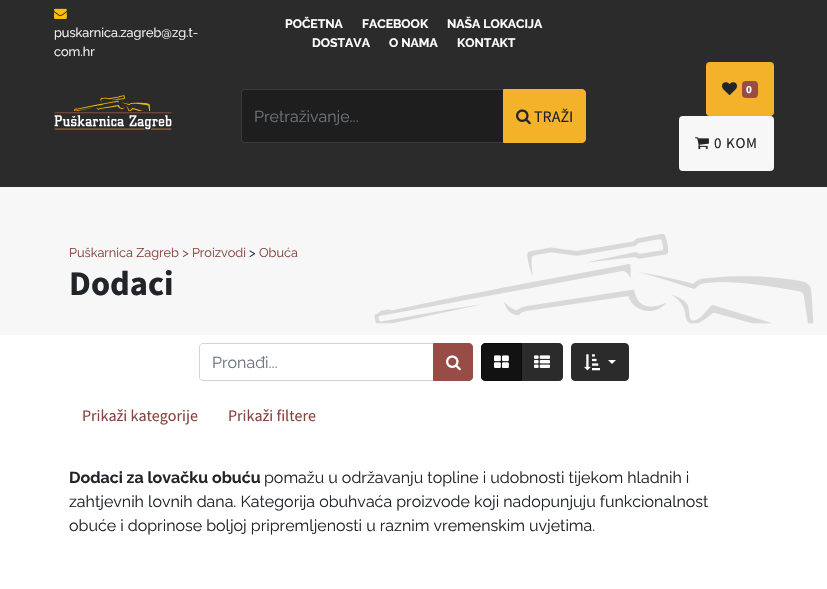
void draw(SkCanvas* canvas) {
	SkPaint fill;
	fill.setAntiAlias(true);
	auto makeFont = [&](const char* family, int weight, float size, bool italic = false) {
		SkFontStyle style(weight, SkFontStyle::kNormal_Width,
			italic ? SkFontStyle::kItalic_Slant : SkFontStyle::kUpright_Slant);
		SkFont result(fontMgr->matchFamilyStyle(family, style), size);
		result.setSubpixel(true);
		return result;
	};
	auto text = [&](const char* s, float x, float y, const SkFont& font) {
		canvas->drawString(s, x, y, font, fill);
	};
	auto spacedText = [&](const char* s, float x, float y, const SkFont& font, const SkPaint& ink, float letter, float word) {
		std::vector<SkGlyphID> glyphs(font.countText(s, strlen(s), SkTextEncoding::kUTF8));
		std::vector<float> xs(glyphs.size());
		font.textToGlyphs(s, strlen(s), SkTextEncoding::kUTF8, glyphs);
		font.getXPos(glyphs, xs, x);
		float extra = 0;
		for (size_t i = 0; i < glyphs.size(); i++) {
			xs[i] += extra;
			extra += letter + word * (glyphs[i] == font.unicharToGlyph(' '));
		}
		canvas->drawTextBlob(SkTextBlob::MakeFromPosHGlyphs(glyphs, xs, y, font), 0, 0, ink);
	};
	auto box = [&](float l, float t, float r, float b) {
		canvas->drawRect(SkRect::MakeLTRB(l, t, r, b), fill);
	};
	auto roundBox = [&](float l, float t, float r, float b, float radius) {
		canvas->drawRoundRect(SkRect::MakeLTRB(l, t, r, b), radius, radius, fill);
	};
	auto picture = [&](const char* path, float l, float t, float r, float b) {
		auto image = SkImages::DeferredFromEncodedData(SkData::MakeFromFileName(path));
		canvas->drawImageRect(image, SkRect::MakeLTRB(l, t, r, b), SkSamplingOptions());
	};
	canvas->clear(0xFFFFFFFF);
	fill.setColor(0xFF2B2B2B);
	box(0, 0, 827, 187);
	picture("image0.png", 54, 8, 67, 19);
	picture("image1.png", 54, 95, 172, 130);
	fill.setColor(0xFF1E1E1E);
	canvas->drawPath(SkPathBuilder().moveTo(245, 89.5f).lineTo(503.5f, 89.5f).lineTo(503.5f, 142.5f).lineTo(245, 142.5f).cubicTo(243, 142.5f, 241.5f, 141, 241.5f, 139).lineTo(241.5f, 93).cubicTo(241.5f, 91, 243, 89.5f, 245, 89.5f).close().detach(), fill);
	fill.setStyle(SkPaint::kStroke_Style);
	fill.setStrokeWidth(1);
	fill.setColor(0xFF3A3A3A);
	canvas->drawPath(SkPathBuilder().moveTo(245, 89.5f).lineTo(503.5f, 89.5f).lineTo(503.5f, 142.5f).lineTo(245, 142.5f).cubicTo(243, 142.5f, 241.5f, 141, 241.5f, 139).lineTo(241.5f, 93).cubicTo(241.5f, 91, 243, 89.5f, 245, 89.5f).close().detach(), fill);
	fill.setStyle(SkPaint::kFill_Style);
	fill.setColor(0xFFF3B229);
	canvas->drawPath(SkPathBuilder().moveTo(503.5f, 89.5f).lineTo(582, 89.5f).cubicTo(584, 89.5f, 585.5f, 91, 585.5f, 93).lineTo(585.5f, 139).cubicTo(585.5f, 141, 584, 142.5f, 582, 142.5f).lineTo(503.5f, 142.5f).close().detach(), fill);
	fill.setStyle(SkPaint::kStroke_Style);
	canvas->drawPath(SkPathBuilder().moveTo(503.5f, 89.5f).lineTo(582, 89.5f).cubicTo(584, 89.5f, 585.5f, 91, 585.5f, 93).lineTo(585.5f, 139).cubicTo(585.5f, 141, 584, 142.5f, 582, 142.5f).lineTo(503.5f, 142.5f).close().detach(), fill);
	picture("image2.png", 516, 109, 531, 125);
	fill.setStyle(SkPaint::kFill_Style);
	roundBox(706, 62, 774, 116, 4);
	picture("image3.png", 722, 82, 737, 95);
	fill.setColor(0xFF984C46);
	roundBox(742, 81, 758, 98, 4);
	fill.setColor(0xFFF7F7F7);
	roundBox(679, 116, 774, 171, 4);
	picture("image4.png", 695, 137, 709, 150);
	box(0, 187, 827, 335);
	picture("image5.png", 374, 234, 814, 324);
	fill.setStyle(SkPaint::kStroke_Style);
	fill.setColor(0xFFCED4DA);
	canvas->drawPath(SkPathBuilder().moveTo(203, 343.5f).lineTo(433.5f, 343.5f).lineTo(433.5f, 380.5f).lineTo(203, 380.5f).cubicTo(201, 380.5f, 199.5f, 379, 199.5f, 377).lineTo(199.5f, 347).cubicTo(199.5f, 345, 201, 343.5f, 203, 343.5f).close().detach(), fill);
	fill.setStyle(SkPaint::kFill_Style);
	fill.setColor(0xFF984C46);
	canvas->drawPath(SkPathBuilder().moveTo(433.5f, 343.5f).lineTo(469, 343.5f).cubicTo(471, 343.5f, 472.5f, 345, 472.5f, 347).lineTo(472.5f, 377).cubicTo(472.5f, 379, 471, 380.5f, 469, 380.5f).lineTo(433.5f, 380.5f).close().detach(), fill);
	fill.setStyle(SkPaint::kStroke_Style);
	canvas->drawPath(SkPathBuilder().moveTo(433.5f, 343.5f).lineTo(469, 343.5f).cubicTo(471, 343.5f, 472.5f, 345, 472.5f, 347).lineTo(472.5f, 377).cubicTo(472.5f, 379, 471, 380.5f, 469, 380.5f).lineTo(433.5f, 380.5f).close().detach(), fill);
	picture("image6.png", 446, 355, 461, 371);
	fill.setStyle(SkPaint::kFill_Style);
	fill.setColor(0xFF2B2B2B);
	canvas->drawPath(SkPathBuilder().moveTo(521.5f, 343.5f).lineTo(559, 343.5f).cubicTo(561, 343.5f, 562.5f, 345, 562.5f, 347).lineTo(562.5f, 377).cubicTo(562.5f, 379, 561, 380.5f, 559, 380.5f).lineTo(521.5f, 380.5f).close().detach(), fill);
	fill.setStyle(SkPaint::kStroke_Style);
	canvas->drawPath(SkPathBuilder().moveTo(521.5f, 343.5f).lineTo(559, 343.5f).cubicTo(561, 343.5f, 562.5f, 345, 562.5f, 347).lineTo(562.5f, 377).cubicTo(562.5f, 379, 561, 380.5f, 559, 380.5f).lineTo(521.5f, 380.5f).close().detach(), fill);
	fill.setStyle(SkPaint::kFill_Style);
	fill.setColor(0xFF121212);
	canvas->drawPath(SkPathBuilder().moveTo(485, 343.5f).lineTo(521.5f, 343.5f).lineTo(521.5f, 380.5f).lineTo(485, 380.5f).cubicTo(483, 380.5f, 481.5f, 379, 481.5f, 377).lineTo(481.5f, 347).cubicTo(481.5f, 345, 483, 343.5f, 485, 343.5f).close().detach(), fill);
	fill.setStyle(SkPaint::kStroke_Style);
	fill.setColor(0xFF0B0B0B);
	canvas->drawPath(SkPathBuilder().moveTo(485, 343.5f).lineTo(521.5f, 343.5f).lineTo(521.5f, 380.5f).lineTo(485, 380.5f).cubicTo(483, 380.5f, 481.5f, 379, 481.5f, 377).lineTo(481.5f, 347).cubicTo(481.5f, 345, 483, 343.5f, 485, 343.5f).close().detach(), fill);
	picture("image7.png", 494, 355, 509, 368);
	picture("image8.png", 534, 355, 550, 368);
	fill.setStyle(SkPaint::kFill_Style);
	fill.setColor(0xFF2B2B2B);
	canvas->drawRoundRect(SkRect::MakeLTRB(571.5f, 343.5f, 628.5f, 380.5f), 3.5f, 3.5f, fill);
	fill.setStyle(SkPaint::kStroke_Style);
	canvas->drawRoundRect(SkRect::MakeLTRB(571.5f, 343.5f, 628.5f, 380.5f), 3.5f, 3.5f, fill);
	picture("image9.png", 584, 354, 600, 371);
	fill.setStyle(SkPaint::kFill_Style);
	fill.setColor(0xFFFFFFFF);
	canvas->drawPath(SkPathBuilder().moveTo(608, 360).lineTo(616, 360).lineTo(612, 364).close().detach(), fill);
	auto font1 = makeFont("Raleway", 400, 12.75f);
	text("puskarnica.zagreb@zg.t-", 54, 37, font1);
	text("com.hr", 54, 56, font1);
	auto font2 = makeFont("Raleway", 700, 12.25f);
	text("POČETNA", 285, 28, font2);
	text("FACEBOOK", 362, 28, font2);
	text("NAŠA LOKACIJA", 447, 28, font2);
	text("DOSTAVA", 312, 47, font2);
	text("O NAMA", 389, 47, font2);
	text("KONTAKT", 457, 47, font2);
	auto font3 = makeFont("Raleway", 400, 16);
	fill.setColor(0xFF6C757D);
	text("Pretraživanje...", 254, 122, font3);
	auto font4 = makeFont("Source Sans Pro", 400, 16);
	fill.setColor(0xFF212529);
	text("TRAŽI", 534, 122, font4);
	auto font5 = makeFont("Source Sans Pro", 700, 11);
	fill.setColor(0xFFFFFFFF);
	spacedText("0", 746, 93, font5, fill, 0.75f, 0);
	auto font6 = makeFont("Source Sans Pro", 400, 15);
	fill.setColor(0xFF212529);
	spacedText("0 KOM", 714, 148, font6, fill, 0.75f, 0);
	fill.setColor(0xFF87433E);
	text("Puškarnica Zagreb > Proizvodi", 69, 257, font1);
	fill.setColor(0xFF212529);
	text(">", 249, 257, font1);
	fill.setColor(0xFF87433E);
	text("Obuća", 259, 257, font1);
	auto font7 = makeFont("Source Sans Pro", 700, 34.5f);
	fill.setColor(0xFF212529);
	text("Dodaci", 69, 295, font7);
	fill.setColor(0xFF6C757D);
	text("Pronađi...", 212, 368, font3);
	fill.setColor(0xFF87433E);
	text("Prikaži kategorije", 82, 421, font4);
	text("Prikaži filtere", 228, 421, font4);
	auto font8 = makeFont("Raleway", 700, 16);
	fill.setColor(0xFF212529);
	text("Dodaci za lovačku obuću", 69, 483, font8);
	text("pomažu u održavanju topline i udobnosti tijekom hladnih i", 264, 483, font3);
	text("zahtjevnih lovnih dana. Kategorija obuhvaća proizvode koji nadopunjuju funkcionalnost", 69, 507, font3);
	text("obuće i doprinose boljoj pripremljenosti u raznim vremenskim uvjetima.", 69, 531, font3);
}
